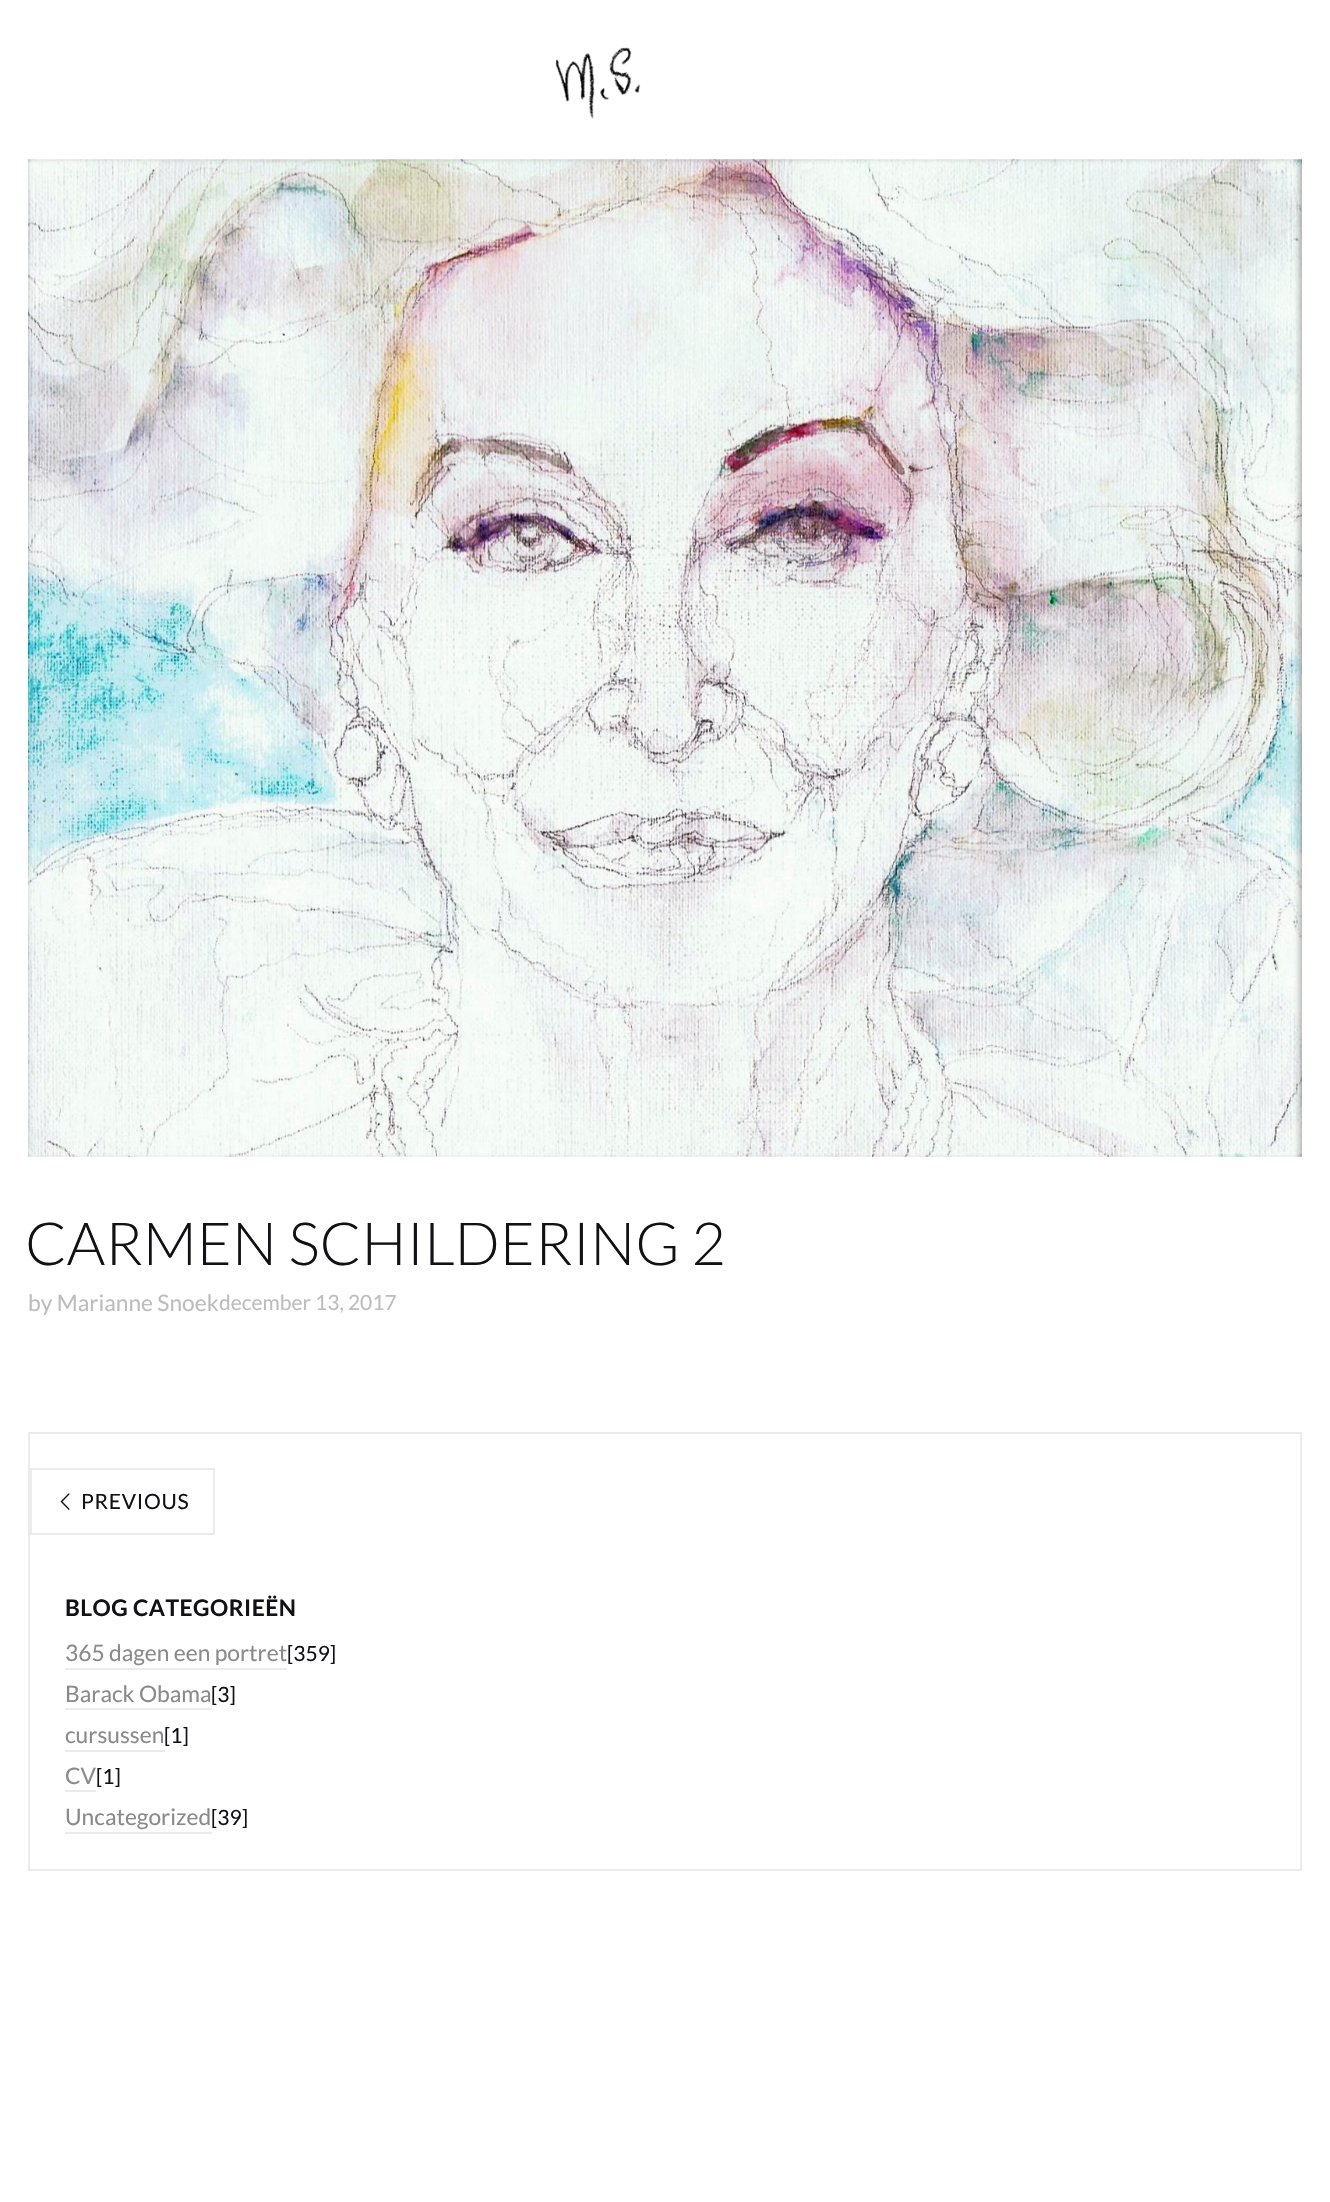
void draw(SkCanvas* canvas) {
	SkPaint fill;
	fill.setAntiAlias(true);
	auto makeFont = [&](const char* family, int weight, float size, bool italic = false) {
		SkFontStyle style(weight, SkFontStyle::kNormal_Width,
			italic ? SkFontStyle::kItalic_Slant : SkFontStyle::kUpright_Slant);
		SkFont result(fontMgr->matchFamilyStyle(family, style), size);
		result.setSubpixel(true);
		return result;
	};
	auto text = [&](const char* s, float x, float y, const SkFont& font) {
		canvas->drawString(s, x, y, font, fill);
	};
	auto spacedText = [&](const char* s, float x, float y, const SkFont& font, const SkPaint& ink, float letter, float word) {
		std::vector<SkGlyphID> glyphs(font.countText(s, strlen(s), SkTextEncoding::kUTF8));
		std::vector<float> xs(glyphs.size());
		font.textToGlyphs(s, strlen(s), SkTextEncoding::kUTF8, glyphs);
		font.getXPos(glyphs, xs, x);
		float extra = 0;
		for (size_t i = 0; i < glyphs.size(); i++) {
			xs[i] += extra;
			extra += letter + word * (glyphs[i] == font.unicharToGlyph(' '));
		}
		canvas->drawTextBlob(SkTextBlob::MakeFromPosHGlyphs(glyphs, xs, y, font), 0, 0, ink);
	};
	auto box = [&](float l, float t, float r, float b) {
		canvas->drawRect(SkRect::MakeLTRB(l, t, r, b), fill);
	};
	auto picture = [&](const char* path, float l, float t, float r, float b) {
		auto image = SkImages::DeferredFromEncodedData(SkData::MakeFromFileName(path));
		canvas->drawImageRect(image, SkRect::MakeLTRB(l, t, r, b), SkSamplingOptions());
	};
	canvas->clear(0xFFFFFFFF);
	picture("image0.png", 555, 47, 641, 119);
	picture("image1.png", 28, 159, 1302, 1157);
	fill.setStyle(SkPaint::kStroke_Style);
	fill.setStrokeWidth(2);
	fill.setColor(0xFFEBEBEB);
	canvas->drawRect(SkRect::MakeLTRB(29, 1433, 1301, 1870), fill);
	canvas->drawRect(SkRect::MakeLTRB(31, 1469, 214, 1534), fill);
	picture("image2.png", 60, 1493, 70, 1510);
	fill.setStyle(SkPaint::kFill_Style);
	box(65, 1668, 287, 1670);
	box(65, 1708, 212, 1710);
	box(65, 1750, 165, 1752);
	box(65, 1790, 96, 1792);
	box(65, 1832, 212, 1834);
	auto font1 = makeFont("Lato", 300, 59.5f);
	fill.setColor(0xFF111116);
	text("CARMEN SCHILDERING 2", 25, 1265, font1);
	auto font2 = makeFont("Lato", 400, 22.75f);
	fill.setColor(0xFFBDBDBD);
	text("by Marianne Snoek", 28, 1311, font2);
	auto font3 = makeFont("Lato", 400, 21);
	text("december 13, 2017", 219, 1310, font3);
	fill.setColor(0xFF111116);
	spacedText("PREVIOUS", 81, 1509, font3, fill, 0.75f, 0);
	auto font4 = makeFont("Lato", 700, 22.75f);
	spacedText("BLOG CATEGORIEËN", 65, 1616, font4, fill, 0.5f, 0);
	fill.setColor(0xFF8A8A8A);
	text("365 dagen een portret", 65, 1661, font2);
	fill.setColor(0xFF111116);
	text("[359]", 287, 1661, font3);
	fill.setColor(0xFF8A8A8A);
	text("Barack Obama", 65, 1702, font2);
	fill.setColor(0xFF111116);
	text("[3]", 211, 1702, font3);
	fill.setColor(0xFF8A8A8A);
	text("cursussen", 65, 1743, font2);
	fill.setColor(0xFF111116);
	text("[1]", 164, 1743, font3);
	fill.setColor(0xFF8A8A8A);
	text("CV", 65, 1784, font2);
	fill.setColor(0xFF111116);
	text("[1]", 96, 1784, font3);
	fill.setColor(0xFF8A8A8A);
	text("Uncategorized", 65, 1825, font2);
	fill.setColor(0xFF111116);
	text("[39]", 211, 1825, font3);
}
